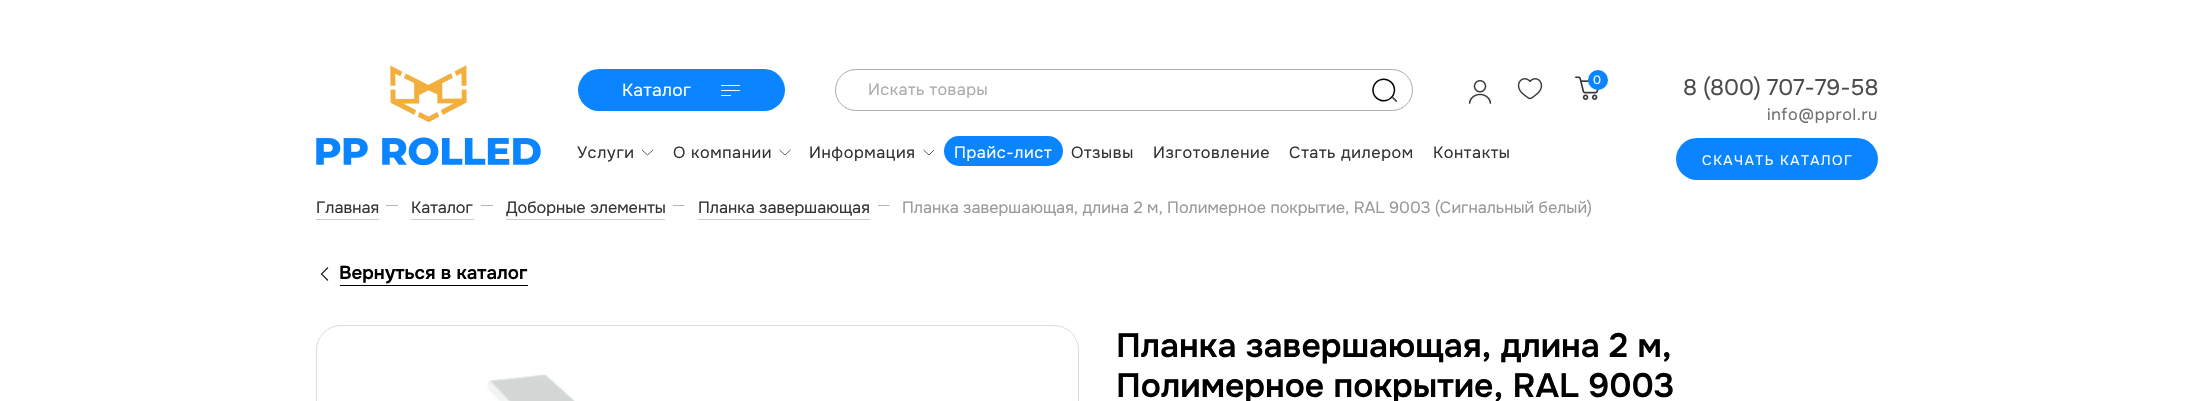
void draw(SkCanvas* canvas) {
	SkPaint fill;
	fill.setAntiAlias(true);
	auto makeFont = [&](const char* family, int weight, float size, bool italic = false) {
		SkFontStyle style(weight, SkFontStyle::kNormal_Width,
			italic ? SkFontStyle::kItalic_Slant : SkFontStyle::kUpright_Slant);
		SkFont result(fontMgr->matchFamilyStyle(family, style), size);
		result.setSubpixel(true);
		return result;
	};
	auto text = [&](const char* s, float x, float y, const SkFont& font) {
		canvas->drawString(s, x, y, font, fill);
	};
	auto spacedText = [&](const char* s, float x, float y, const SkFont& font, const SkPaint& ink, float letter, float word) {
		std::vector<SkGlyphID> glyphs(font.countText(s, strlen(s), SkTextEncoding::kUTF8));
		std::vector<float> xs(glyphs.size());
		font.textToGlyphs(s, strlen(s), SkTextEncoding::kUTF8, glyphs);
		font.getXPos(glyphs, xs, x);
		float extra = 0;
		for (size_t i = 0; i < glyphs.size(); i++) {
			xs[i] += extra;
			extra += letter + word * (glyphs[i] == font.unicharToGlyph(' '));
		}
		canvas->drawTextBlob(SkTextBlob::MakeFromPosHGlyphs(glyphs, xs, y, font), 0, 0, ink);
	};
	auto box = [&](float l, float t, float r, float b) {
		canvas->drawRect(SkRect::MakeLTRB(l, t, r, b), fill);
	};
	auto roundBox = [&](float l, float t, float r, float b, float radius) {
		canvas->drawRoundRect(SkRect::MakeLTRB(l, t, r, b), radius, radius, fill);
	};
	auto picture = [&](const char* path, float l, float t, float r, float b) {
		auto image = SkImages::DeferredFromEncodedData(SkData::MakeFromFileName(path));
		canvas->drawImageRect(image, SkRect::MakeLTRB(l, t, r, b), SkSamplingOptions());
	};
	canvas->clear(0xFFFFFFFF);
	picture("image0.png", 316, 65, 541, 165);
	fill.setColor(0xFF0A84FF);
	roundBox(578, 69, 785, 111, 21);
	fill.setColor(0xFFFFFFFF);
	roundBox(721, 85, 740, 86, 0.5f);
	roundBox(721, 90, 740, 91, 0.5f);
	roundBox(721, 95, 731, 96, 0.5f);
	fill.setStyle(SkPaint::kStroke_Style);
	fill.setStrokeWidth(1);
	fill.setColor(0xFFAFABAB);
	canvas->drawRoundRect(SkRect::MakeLTRB(835.5f, 69.5f, 1412.5f, 110.5f), 20.5f, 20.5f, fill);
	picture("image1.png", 1372, 78, 1397, 103);
	picture("image2.png", 1469, 80, 1491, 104);
	picture("image3.png", 1517, 78, 1543, 100);
	picture("image4.png", 1575, 76, 1599, 100);
	fill.setStyle(SkPaint::kFill_Style);
	fill.setColor(0xFF0A84FF);
	canvas->drawCircle(1598, 80, 10, fill);
	fill.setStyle(SkPaint::kStroke_Style);
	fill.setStrokeWidth(0.9f);
	fill.setColor(0xFF4C4C4C);
	canvas->drawPath(SkPathBuilder().moveTo(653, 150).lineTo(647.5f, 155).lineTo(642, 150).detach(), fill);
	canvas->drawPath(SkPathBuilder().moveTo(790.5f, 150).lineTo(785, 155).lineTo(779.5f, 150).detach(), fill);
	canvas->drawPath(SkPathBuilder().moveTo(934, 150).lineTo(929, 155).lineTo(923.5f, 150).detach(), fill);
	fill.setStyle(SkPaint::kFill_Style);
	fill.setColor(0xFF0A84FF);
	roundBox(944, 136, 1063, 166, 15);
	roundBox(1676, 138, 1878, 180, 21);
	fill.setColor(0xFFCCCCCC);
	box(316, 219, 379, 220);
	canvas->save();
	canvas->clipRect(SkRect::MakeLTRB(386, 205, 399, 206));
	fill.setStyle(SkPaint::kStroke_Style);
	fill.setStrokeWidth(1.1f);
	fill.setStrokeCap(SkPaint::kRound_Cap);
	fill.setColor(0xFFB6B6B6);
	canvas->drawPath(SkPathBuilder().moveTo(397.5f, 205.5f).lineTo(386, 205.5f).detach(), fill);
	canvas->restore();
	fill.setStyle(SkPaint::kFill_Style);
	fill.setColor(0xFFCCCCCC);
	box(411, 219, 474, 220);
	canvas->save();
	canvas->clipRect(SkRect::MakeLTRB(481, 205, 494, 206));
	fill.setStyle(SkPaint::kStroke_Style);
	fill.setColor(0xFFB6B6B6);
	canvas->drawPath(SkPathBuilder().moveTo(492.5f, 205.5f).lineTo(481, 205.5f).detach(), fill);
	canvas->restore();
	fill.setStyle(SkPaint::kFill_Style);
	fill.setColor(0xFFCCCCCC);
	box(506, 219, 665, 220);
	canvas->save();
	canvas->clipRect(SkRect::MakeLTRB(673, 205, 685, 206));
	fill.setStyle(SkPaint::kStroke_Style);
	fill.setColor(0xFFB6B6B6);
	canvas->drawPath(SkPathBuilder().moveTo(684, 205.5f).lineTo(672.5f, 205.5f).detach(), fill);
	canvas->restore();
	fill.setStyle(SkPaint::kFill_Style);
	fill.setColor(0xFFCCCCCC);
	box(698, 219, 870, 220);
	canvas->save();
	canvas->clipRect(SkRect::MakeLTRB(878, 205, 890, 206));
	fill.setStyle(SkPaint::kStroke_Style);
	fill.setColor(0xFFB6B6B6);
	canvas->drawPath(SkPathBuilder().moveTo(889, 205.5f).lineTo(877.5f, 205.5f).detach(), fill);
	canvas->restore();
	fill.setStyle(SkPaint::kFill_Style);
	fill.setColor(0xFF000000);
	box(340, 285, 528, 286);
	fill.setStyle(SkPaint::kStroke_Style);
	fill.setStrokeCap(SkPaint::kButt_Cap);
	fill.setColor(0xFF1A1A1A);
	canvas->drawPath(SkPathBuilder().moveTo(328, 280.5f).lineTo(321.5f, 274).lineTo(328, 267.5f).detach(), fill);
	fill.setStrokeWidth(1);
	fill.setColor(0xFFDDDDDD);
	canvas->drawRoundRect(SkRect::MakeLTRB(316.5f, 325.5f, 1078.5f, 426.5f), 24.5f, 24.5f, fill);
	picture("image5.png", 487, 374, 575, 401);
	auto font1 = makeFont("Onest", 400, 17.5f);
	fill.setStyle(SkPaint::kFill_Style);
	fill.setColor(0xFFFFFFFF);
	spacedText("Каталог", 622, 96, font1, fill, 0.4f, 0);
	auto font2 = makeFont("Onest", 400, 16.25f);
	fill.setColor(0xFFAFABAB);
	spacedText("Искать товары", 868, 95, font2, fill, 0.4f, 0);
	auto font3 = makeFont("Onest", 400, 12);
	fill.setColor(0xFFFFFFFF);
	text("0", 1593, 84, font3);
	fill.setColor(0xFF333333);
	spacedText("Услуги", 577, 158, font2, fill, 0.6f, 0);
	spacedText("О компании", 673, 158, font2, fill, 0.6f, 0);
	spacedText("Информация", 809, 158, font2, fill, 0.6f, 0);
	fill.setColor(0xFFFFFFFF);
	spacedText("Прайс-лист", 954, 158, font2, fill, 0.6f, 0);
	fill.setColor(0xFF333333);
	spacedText("Отзывы", 1071, 158, font2, fill, 0.6f, 0);
	spacedText("Изготовление", 1153, 158, font2, fill, 0.6f, 0);
	spacedText("Стать дилером", 1289, 158, font2, fill, 0.6f, 0);
	spacedText("Контакты", 1433, 158, font2, fill, 0.6f, 0);
	auto font4 = makeFont("Onest", 400, 22.5f);
	fill.setColor(0xFF4C4C4C);
	text("8 (800) 707-79-58", 1683, 95, font4);
	fill.setColor(0xFF707070);
	spacedText("info@pprol.ru", 1767, 120, font2, fill, 0.6f, 0);
	auto font5 = makeFont("Onest", 400, 13.75f);
	fill.setColor(0xFFFFFFFF);
	spacedText("СКАЧАТЬ КАТАЛОГ", 1702, 165, font5, fill, 1.5f, 0);
	fill.setColor(0xFF333333);
	text("Главная", 316, 213, font2);
	text("Каталог", 411, 213, font2);
	text("Доборные элементы", 506, 213, font2);
	text("Планка завершающая", 698, 213, font2);
	fill.setColor(0xFF999999);
	text("Планка завершающая, длина 2 м, Полимерное покрытие, RAL 9003 (Сигнальный белый)", 902, 213, font2);
	auto font6 = makeFont("Onest", 600, 18.75f);
	fill.setColor(0xFF000000);
	text("Вернуться в каталог", 339, 279, font6);
	auto font7 = makeFont("Onest", 600, 33.75f);
	text("Планка завершающая, длина 2 м,", 1116, 357, font7);
	text("Полимерное покрытие, RAL 9003", 1116, 397, font7);
}
